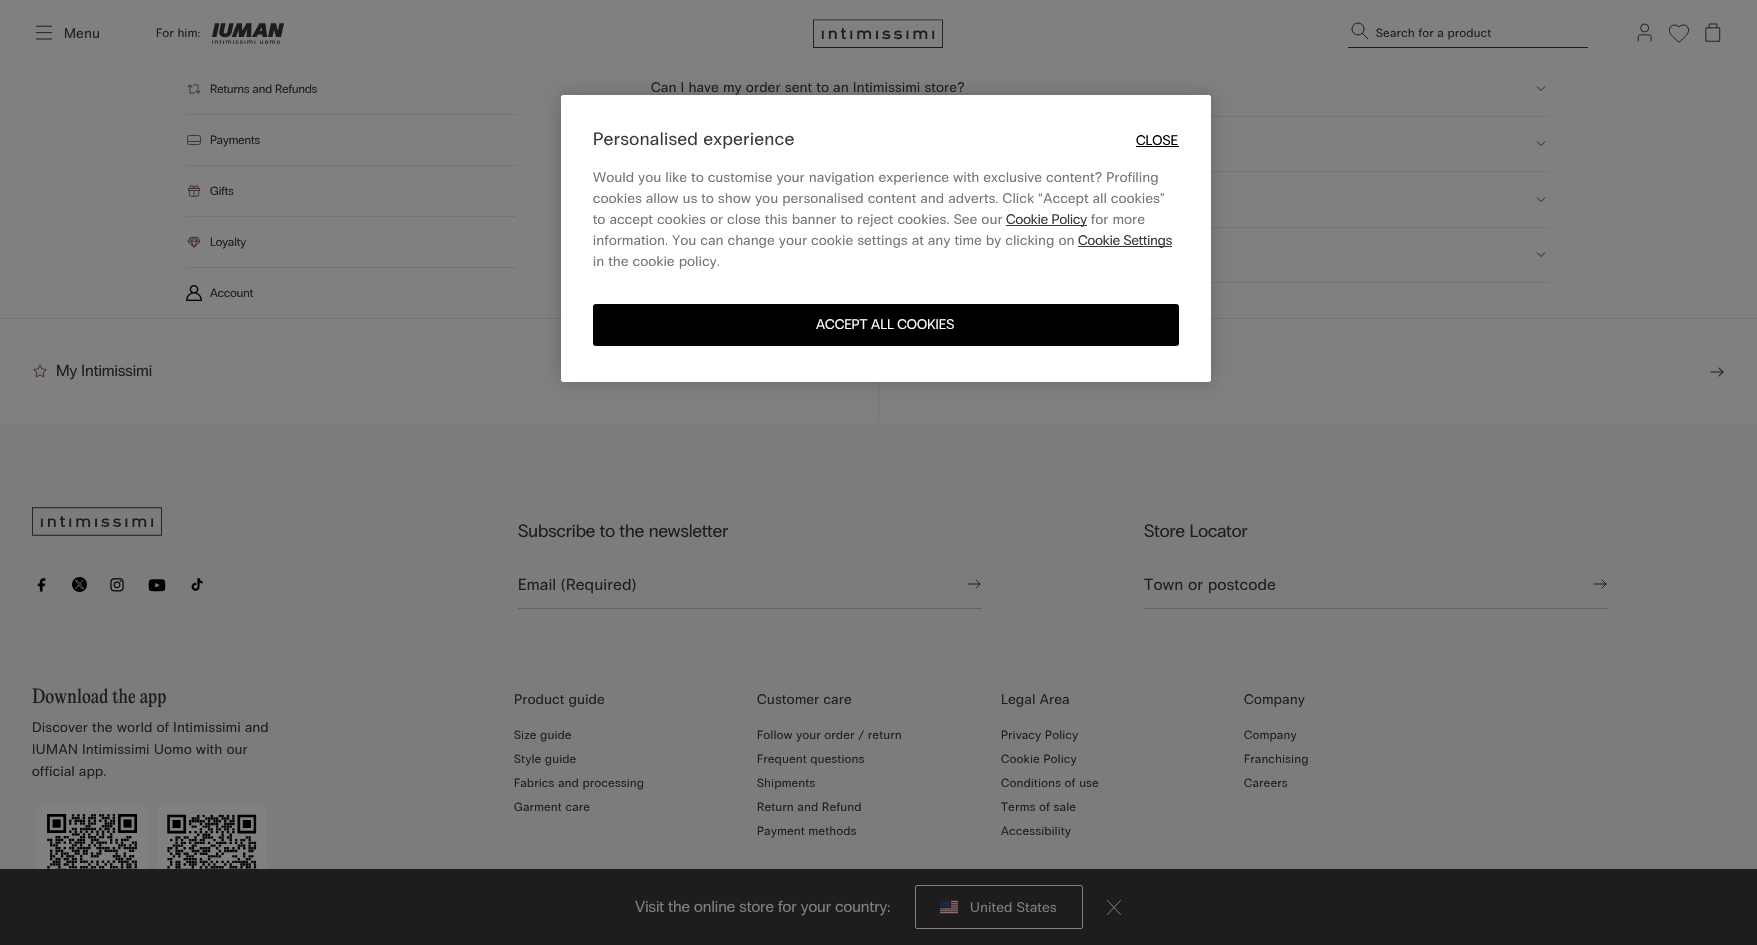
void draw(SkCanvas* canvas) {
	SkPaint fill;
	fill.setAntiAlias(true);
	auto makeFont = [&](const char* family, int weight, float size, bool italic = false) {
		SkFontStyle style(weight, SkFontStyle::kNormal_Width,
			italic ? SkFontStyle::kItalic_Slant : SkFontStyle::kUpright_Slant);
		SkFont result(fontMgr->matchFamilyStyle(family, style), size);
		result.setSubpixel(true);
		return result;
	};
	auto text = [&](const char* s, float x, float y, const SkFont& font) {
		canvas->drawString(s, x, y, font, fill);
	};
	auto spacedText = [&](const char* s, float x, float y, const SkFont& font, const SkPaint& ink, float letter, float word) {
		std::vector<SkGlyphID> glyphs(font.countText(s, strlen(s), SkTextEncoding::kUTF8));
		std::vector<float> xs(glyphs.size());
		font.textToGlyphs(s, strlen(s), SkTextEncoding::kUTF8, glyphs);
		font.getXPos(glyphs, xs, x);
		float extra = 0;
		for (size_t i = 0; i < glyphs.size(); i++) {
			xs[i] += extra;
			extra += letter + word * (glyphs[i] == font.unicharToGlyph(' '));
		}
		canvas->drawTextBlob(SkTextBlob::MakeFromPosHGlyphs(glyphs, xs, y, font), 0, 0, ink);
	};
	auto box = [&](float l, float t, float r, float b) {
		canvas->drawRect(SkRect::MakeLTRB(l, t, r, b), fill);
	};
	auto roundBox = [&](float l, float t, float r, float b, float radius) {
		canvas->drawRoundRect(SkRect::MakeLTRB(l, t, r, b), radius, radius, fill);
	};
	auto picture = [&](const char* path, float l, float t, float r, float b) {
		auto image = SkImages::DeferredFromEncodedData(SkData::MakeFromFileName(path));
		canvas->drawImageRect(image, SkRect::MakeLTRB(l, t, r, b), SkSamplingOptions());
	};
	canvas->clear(0xFF808080);
	picture("image0.png", 35, 25, 53, 40);
	picture("image1.png", 212, 23, 284, 44);
	picture("image2.png", 813, 19, 943, 48);
	fill.setColor(0xFF1E1C1C);
	box(1348, 47, 1588, 48);
	picture("image3.png", 1351, 22, 1369, 40);
	picture("image4.png", 1637, 23, 1652, 42);
	picture("image5.png", 1668, 24, 1690, 43);
	picture("image6.png", 1705, 23, 1721, 42);
	picture("image7.png", 187, 84, 201, 94);
	fill.setColor(0xFF747474);
	box(186, 114, 516, 115);
	fill.setStyle(SkPaint::kStroke_Style);
	fill.setStrokeWidth(1);
	fill.setColor(0xFF483330);
	canvas->drawRoundRect(SkRect::MakeLTRB(187.5f, 135.5f, 200.5f, 144.5f), 2, 2, fill);
	fill.setStrokeCap(SkPaint::kRound_Cap);
	canvas->drawPath(SkPathBuilder().moveTo(187.5f, 141.5f).lineTo(200.5f, 141.5f).detach(), fill);
	fill.setStyle(SkPaint::kFill_Style);
	fill.setColor(0xFF747474);
	box(186, 165, 516, 166);
	picture("image8.png", 188, 185, 200, 197);
	box(186, 216, 516, 217);
	picture("image9.png", 187, 236, 201, 248);
	box(186, 267, 516, 268);
	picture("image10.png", 186, 285, 202, 301);
	fill.setColor(0xFF757575);
	box(1211, 116, 1550, 117);
	picture("image11.png", 1536, 86, 1546, 91);
	box(1211, 171, 1550, 172);
	picture("image11.png", 1536, 141, 1546, 146);
	box(1211, 227, 1550, 228);
	picture("image11.png", 1536, 197, 1546, 202);
	box(1211, 282, 1550, 283);
	picture("image11.png", 1536, 252, 1546, 257);
	box(0, 318, 1757, 319);
	box(878, 382, 879, 423);
	picture("image12.png", 33, 364, 47, 378);
	picture("image13.png", 1710, 367, 1724, 377);
	fill.setColor(0xFF7D7C7B);
	box(0, 423, 1757, 869);
	fill.setColor(0xFF646363);
	box(518, 608, 982, 609);
	picture("image14.png", 967, 579, 981, 589);
	box(1144, 608, 1608, 609);
	picture("image14.png", 1593, 579, 1607, 589);
	picture("image15.png", 32, 507, 162, 536);
	picture("image16.png", 37, 578, 46, 592);
	picture("image17.png", 72, 577, 87, 592);
	picture("image18.png", 110, 578, 124, 592);
	picture("image19.png", 148, 579, 166, 592);
	picture("image20.png", 191, 578, 203, 591);
	picture("image21.png", 32, 804, 152, 869);
	picture("image22.png", 152, 805, 271, 869);
	fill.setColor(0x33000000);
	fill.setMaskFilter(SkMaskFilter::MakeBlur(kNormal_SkBlurStyle, 9));
	canvas->drawRoundRect(SkRect::MakeLTRB(561, 95, 1211, 382), 2.5f, 2.5f, fill);
	fill.setMaskFilter(nullptr);
	fill.setColor(0xFFFFFFFF);
	roundBox(561, 95, 1211, 382, 2.5f);
	fill.setColor(0xFF3C3738);
	box(1006, 225, 1087, 226);
	box(1078, 246, 1172, 247);
	fill.setColor(0xFF000000);
	box(1136, 146, 1179, 147);
	roundBox(593, 304, 1179, 346, 3);
	fill.setColor(0xFF1E1C1C);
	box(0, 869, 1757, 945);
	fill.setStyle(SkPaint::kStroke_Style);
	fill.setStrokeCap(SkPaint::kButt_Cap);
	fill.setColor(0xFF808080);
	canvas->drawRoundRect(SkRect::MakeLTRB(915.5f, 885.5f, 1082.5f, 928.5f), 1.5f, 1.5f, fill);
	picture("image23.png", 940, 900, 958, 914);
	fill.setStrokeCap(SkPaint::kRound_Cap);
	canvas->drawPath(SkPathBuilder().moveTo(1120.5f, 900.5f).lineTo(1107.5f, 914.5f).moveTo(1107.5f, 900.5f).lineTo(1120.5f, 914.5f).detach(), fill);
	auto font1 = makeFont("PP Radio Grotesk", 400, 14);
	fill.setStyle(SkPaint::kFill_Style);
	fill.setColor(0xFF1E1C1C);
	spacedText("Menu", 64, 38, font1, fill, 0.5f, 0);
	auto font2 = makeFont("PP Radio Grotesk", 400, 12);
	spacedText("For him:", 156, 37, font2, fill, 0.5f, 0);
	spacedText("Search for a product", 1376, 37, font2, fill, 0.5f, 0);
	text("Returns and Refunds", 210, 93, font2);
	text("Payments", 210, 144, font2);
	text("Gifts", 210, 195, font2);
	text("Loyalty", 210, 246, font2);
	text("Account", 210, 297, font2);
	spacedText("Can I have my order sent to an Intimissimi store?", 651, 92, font1, fill, 0.5f, 0);
	auto font3 = makeFont("PP Radio Grotesk", 400, 16);
	text("My Intimissimi", 56, 376, font3);
	auto font4 = makeFont("PP Radio Grotesk", 400, 18);
	text("Subscribe to the newsletter", 518, 537, font4);
	spacedText("Email (Required)", 518, 590, font3, fill, 0.5f, 0);
	text("Store Locator", 1144, 537, font4);
	spacedText("Town or postcode", 1144, 590, font3, fill, 0.5f, 0);
	auto font5 = makeFont("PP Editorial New", 400, 18);
	text("Download the app", 32, 703, font5);
	spacedText("Discover the world of Intimissimi and", 32, 732, font1, fill, 0.5f, 0);
	spacedText("IUMAN Intimissimi Uomo with our", 32, 754, font1, fill, 0.5f, 0);
	spacedText("official app.", 32, 776, font1, fill, 0.5f, 0);
	spacedText("Product guide", 514, 704, font1, fill, 0.5f, 0);
	spacedText("Size guide", 514, 739, font2, fill, 0.5f, 0);
	spacedText("Style guide", 514, 763, font2, fill, 0.5f, 0);
	spacedText("Fabrics and processing", 514, 787, font2, fill, 0.5f, 0);
	spacedText("Garment care", 514, 811, font2, fill, 0.5f, 0);
	spacedText("Customer care", 757, 704, font1, fill, 0.5f, 0);
	spacedText("Follow your order / return", 757, 739, font2, fill, 0.5f, 0);
	spacedText("Frequent questions", 757, 763, font2, fill, 0.5f, 0);
	spacedText("Shipments", 757, 787, font2, fill, 0.5f, 0);
	spacedText("Return and Refund", 757, 811, font2, fill, 0.5f, 0);
	spacedText("Payment methods", 757, 835, font2, fill, 0.5f, 0);
	spacedText("Legal Area", 1001, 704, font1, fill, 0.5f, 0);
	spacedText("Privacy Policy", 1001, 739, font2, fill, 0.5f, 0);
	spacedText("Cookie Policy", 1001, 763, font2, fill, 0.5f, 0);
	spacedText("Conditions of use", 1001, 787, font2, fill, 0.5f, 0);
	spacedText("Terms of sale", 1001, 811, font2, fill, 0.5f, 0);
	spacedText("Accessibility", 1001, 835, font2, fill, 0.5f, 0);
	spacedText("Company", 1244, 704, font1, fill, 0.5f, 0);
	spacedText("Company", 1244, 739, font2, fill, 0.5f, 0);
	spacedText("Franchising", 1244, 763, font2, fill, 0.5f, 0);
	spacedText("Careers", 1244, 787, font2, fill, 0.5f, 0);
	fill.setColor(0xFF3C3738);
	spacedText("Personalised experience", 593, 145, font4, fill, 0.6f, 0);
	fill.setColor(0xFF757575);
	spacedText("Would you like to customise your navigation experience with exclusive content? Profiling", 593, 182, font1, fill, 0.43f, 0);
	spacedText("cookies allow us to show you personalised content and adverts. Click “Accept all cookies”", 593, 203, font1, fill, 0.43f, 0);
	spacedText("to accept cookies or close this banner to reject cookies. See our", 593, 224, font1, fill, 0.43f, 0);
	fill.setColor(0xFF3C3738);
	text("Cookie Policy", 1006, 224, font1);
	fill.setColor(0xFF757575);
	spacedText("for more", 1091, 224, font1, fill, 0.43f, 0);
	spacedText("information. You can change your cookie settings at any time by clicking on", 593, 245, font1, fill, 0.43f, 0);
	fill.setColor(0xFF3C3738);
	text("Cookie Settings", 1078, 245, font1);
	fill.setColor(0xFF757575);
	spacedText("in the cookie policy.", 593, 266, font1, fill, 0.43f, 0);
	fill.setColor(0xFF000000);
	text("CLOSE", 1136, 145, font1);
	fill.setColor(0xFFFFFFFF);
	text("ACCEPT ALL COOKIES", 816, 329, font1);
	fill.setColor(0xFF808080);
	text("Visit the online store for your country:", 635, 912, font3);
	spacedText("United States", 970, 912, font1, fill, 0.5f, 0);
}
